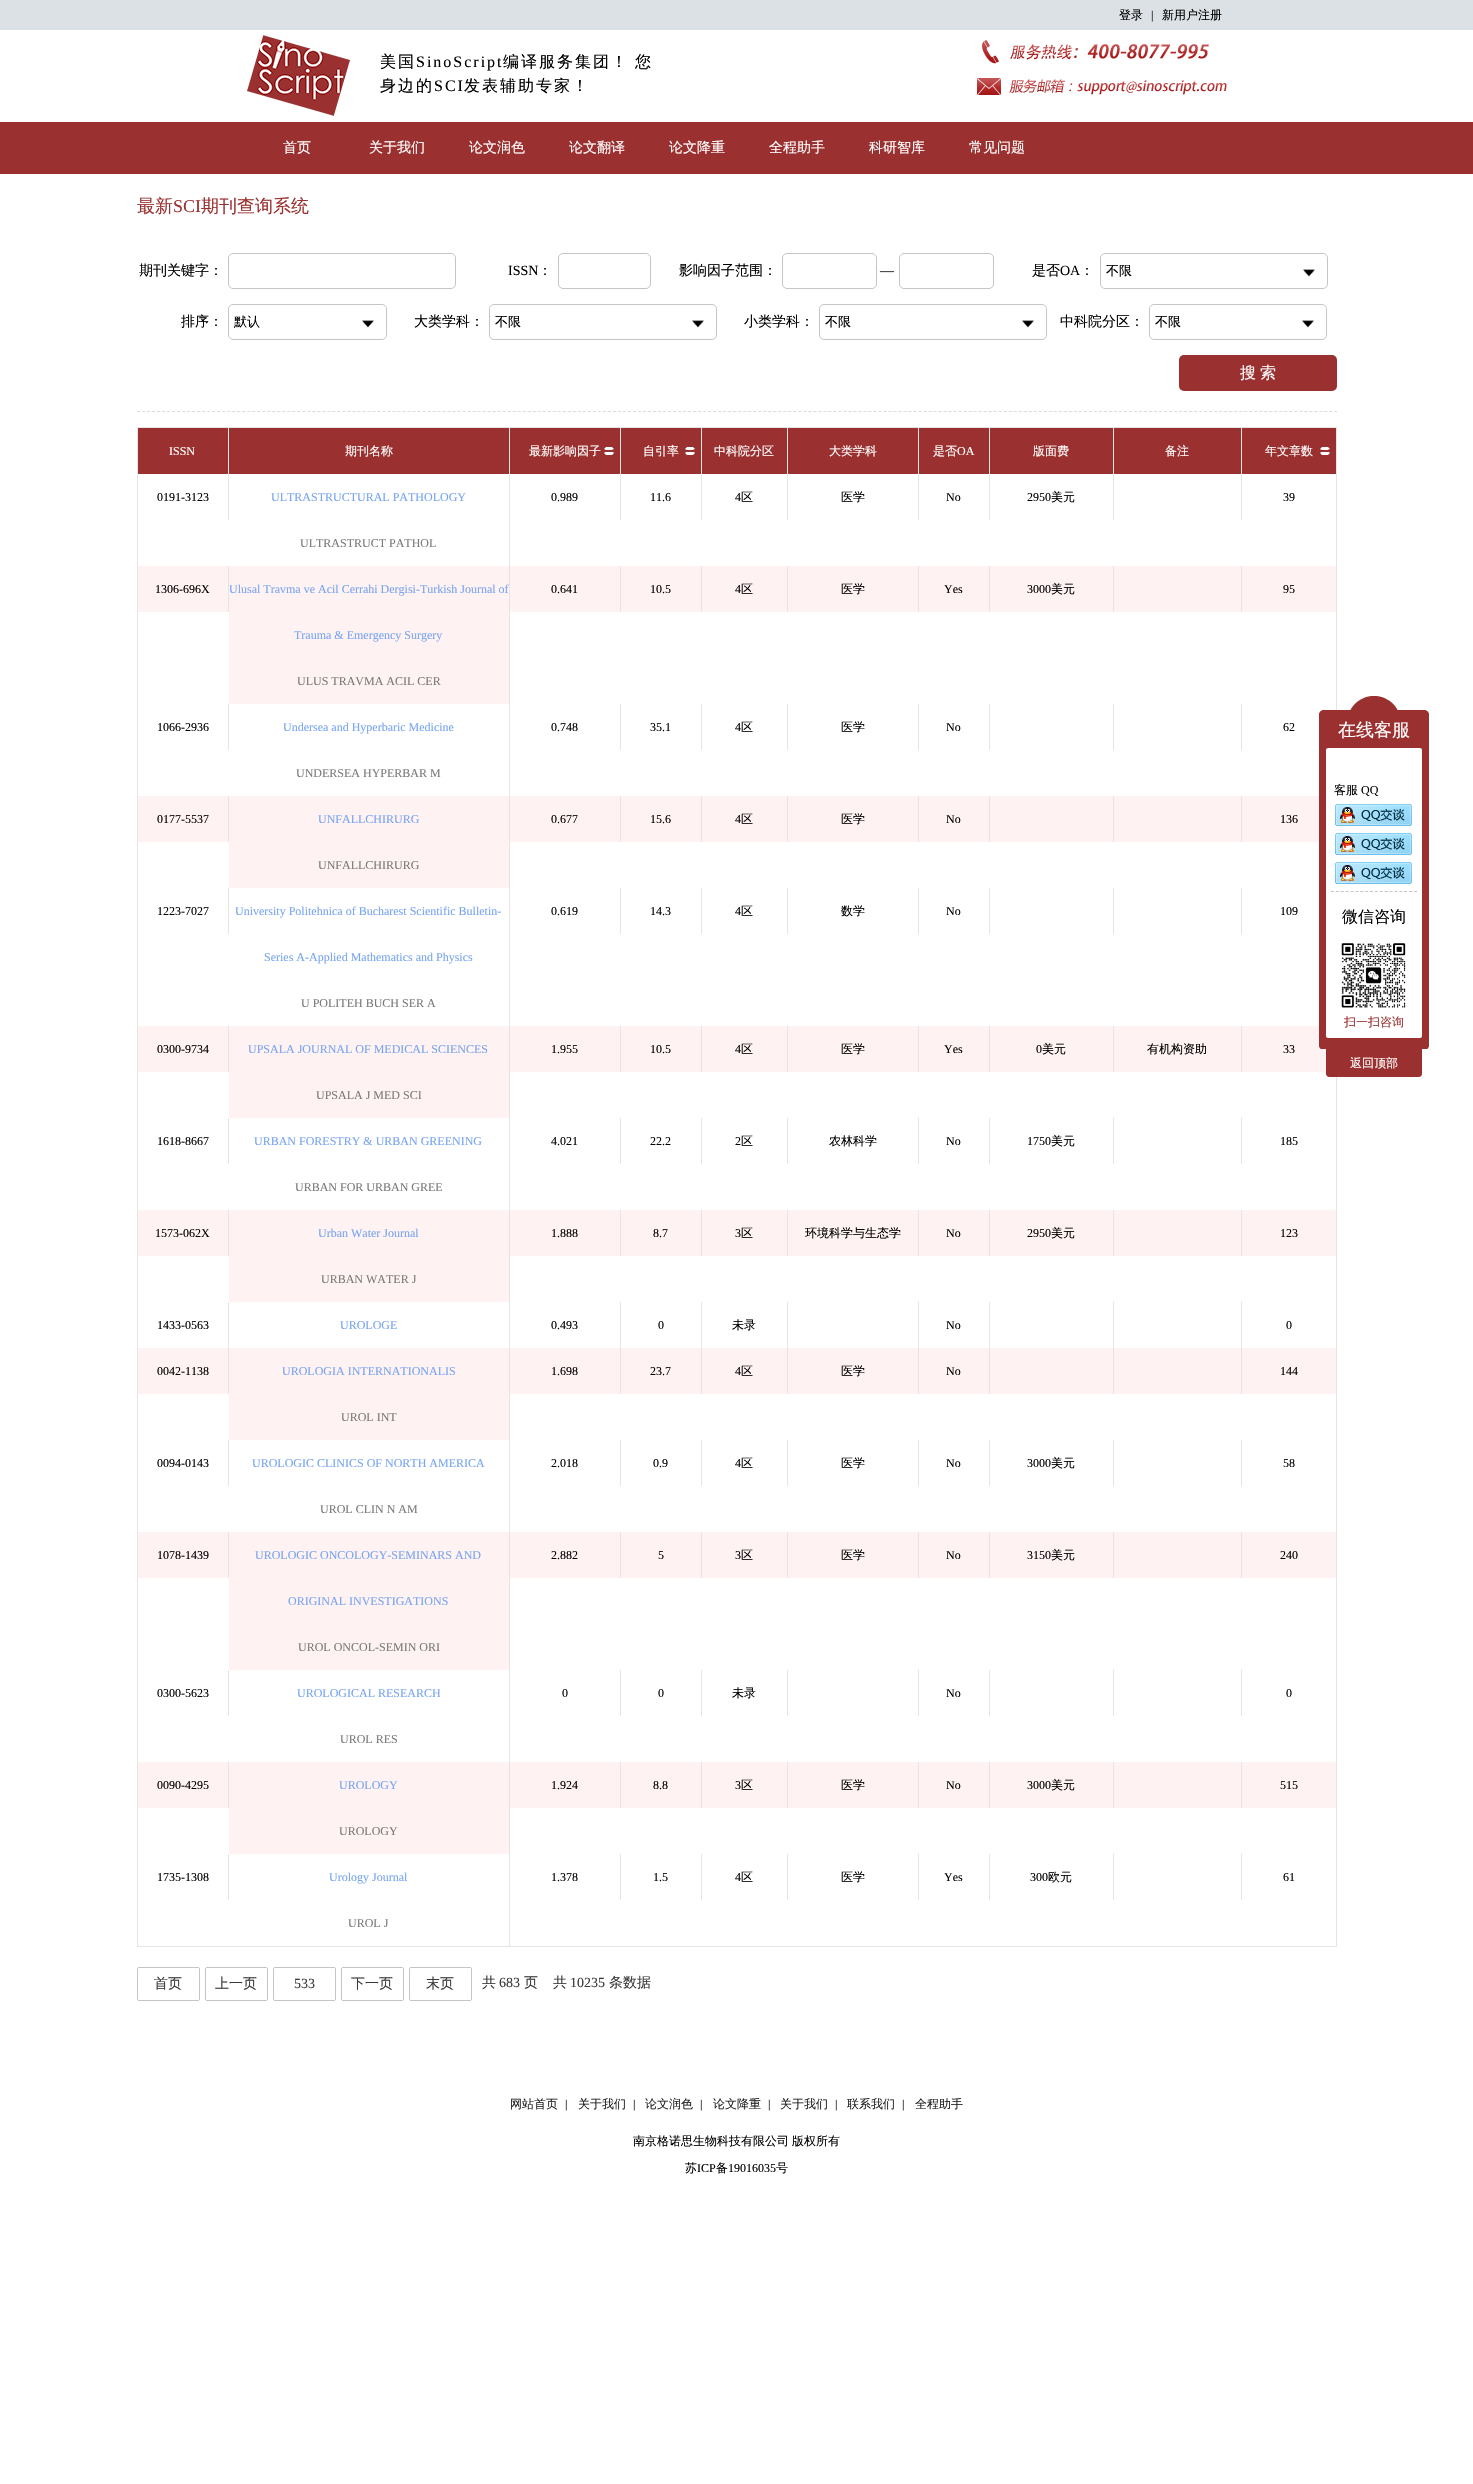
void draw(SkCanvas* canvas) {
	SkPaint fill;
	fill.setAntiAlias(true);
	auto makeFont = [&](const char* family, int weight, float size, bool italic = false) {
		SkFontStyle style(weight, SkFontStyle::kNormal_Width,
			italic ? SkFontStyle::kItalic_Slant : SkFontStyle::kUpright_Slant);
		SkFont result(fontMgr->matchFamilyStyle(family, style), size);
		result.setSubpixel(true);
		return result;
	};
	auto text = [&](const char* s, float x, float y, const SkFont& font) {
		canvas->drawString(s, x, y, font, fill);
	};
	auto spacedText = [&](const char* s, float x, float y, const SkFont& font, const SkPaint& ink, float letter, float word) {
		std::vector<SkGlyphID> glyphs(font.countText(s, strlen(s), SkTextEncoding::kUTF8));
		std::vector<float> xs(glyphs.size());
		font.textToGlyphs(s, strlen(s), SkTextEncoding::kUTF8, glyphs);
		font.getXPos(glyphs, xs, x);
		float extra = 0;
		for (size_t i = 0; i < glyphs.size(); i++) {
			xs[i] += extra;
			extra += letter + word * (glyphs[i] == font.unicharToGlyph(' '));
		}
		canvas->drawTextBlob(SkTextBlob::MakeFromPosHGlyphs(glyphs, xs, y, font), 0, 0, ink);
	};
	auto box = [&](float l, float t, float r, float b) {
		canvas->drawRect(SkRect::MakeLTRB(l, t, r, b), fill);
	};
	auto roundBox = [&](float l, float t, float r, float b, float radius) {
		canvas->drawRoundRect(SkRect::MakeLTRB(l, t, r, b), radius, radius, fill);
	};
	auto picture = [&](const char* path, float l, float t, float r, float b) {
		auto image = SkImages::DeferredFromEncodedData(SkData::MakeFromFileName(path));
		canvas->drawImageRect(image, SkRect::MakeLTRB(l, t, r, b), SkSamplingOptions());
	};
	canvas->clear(0xFFFFFFFF);
	fill.setColor(0xFFDCE1E5);
	box(0, 0, 1473, 30);
	picture("image0.png", 247, 35, 350, 116);
	picture("image1.png", 977, 40, 1227, 95);
	fill.setColor(0xFF9A302F);
	box(0, 122, 1473, 174);
	fill.setStyle(SkPaint::kStroke_Style);
	fill.setStrokeWidth(1);
	fill.setColor(0xFFDBDBDB);
	fill.setPathEffect(SkDashPathEffect::Make({{3, 2.01f}}, 0));
	canvas->drawPath(SkPathBuilder().moveTo(137, 411.5f).lineTo(1337, 411.5f).detach(), fill);
	fill.setPathEffect(nullptr);
	fill.setColor(0xFFC5C5C5);
	canvas->drawRoundRect(SkRect::MakeLTRB(228.5f, 253.5f, 455.5f, 288.5f), 4.5f, 4.5f, fill);
	canvas->drawRoundRect(SkRect::MakeLTRB(558.5f, 253.5f, 650.5f, 288.5f), 4.5f, 4.5f, fill);
	canvas->drawRoundRect(SkRect::MakeLTRB(782.5f, 253.5f, 876.5f, 288.5f), 4.5f, 4.5f, fill);
	canvas->drawRoundRect(SkRect::MakeLTRB(899.5f, 253.5f, 993.5f, 288.5f), 4.5f, 4.5f, fill);
	canvas->drawRoundRect(SkRect::MakeLTRB(1100.5f, 253.5f, 1327.5f, 288.5f), 4.5f, 4.5f, fill);
	picture("image2.png", 1303, 269, 1315, 277);
	canvas->drawRoundRect(SkRect::MakeLTRB(228.5f, 304.5f, 386.5f, 339.5f), 4.5f, 4.5f, fill);
	picture("image2.png", 362, 320, 374, 328);
	canvas->drawRoundRect(SkRect::MakeLTRB(489.5f, 304.5f, 716.5f, 339.5f), 4.5f, 4.5f, fill);
	picture("image2.png", 692, 320, 704, 328);
	canvas->drawRoundRect(SkRect::MakeLTRB(819.5f, 304.5f, 1046.5f, 339.5f), 4.5f, 4.5f, fill);
	picture("image2.png", 1022, 320, 1034, 328);
	canvas->drawRoundRect(SkRect::MakeLTRB(1149.5f, 304.5f, 1326.5f, 339.5f), 4.5f, 4.5f, fill);
	picture("image2.png", 1302, 320, 1314, 328);
	fill.setStyle(SkPaint::kFill_Style);
	fill.setColor(0xFF9A302F);
	roundBox(1179, 355, 1337, 391, 5);
	fill.setStyle(SkPaint::kStroke_Style);
	fill.setColor(0xFFE5E5E5);
	canvas->drawRect(SkRect::MakeLTRB(137.5f, 427.5f, 1336.5f, 1946.5f), fill);
	fill.setStyle(SkPaint::kFill_Style);
	fill.setColor(0xFF9A302F);
	box(138, 428, 1336, 474);
	fill.setColor(0xFFE5E5E5);
	box(228, 428, 229, 520);
	box(509, 428, 510, 1348);
	box(620, 428, 621, 474);
	fill.setColor(0xFFFFFFFF);
	canvas->drawPath(SkPathBuilder().moveTo(611.5f, 450).cubicTo(609.5f, 450, 605.5f, 450.5f, 604, 449).lineTo(606, 447).lineTo(612, 447).lineTo(614, 449).close().moveTo(606, 452).cubicTo(605, 452, 604.5f, 452.5f, 604, 453).lineTo(606, 455).lineTo(612, 455).lineTo(614, 453).lineTo(613, 452).close().detach(), fill);
	fill.setColor(0xFFE5E5E5);
	box(701, 428, 702, 474);
	fill.setColor(0xFFFFFFFF);
	canvas->drawPath(SkPathBuilder().moveTo(692.5f, 450).cubicTo(690.5f, 450, 686.5f, 450.5f, 685, 449).lineTo(687, 447).lineTo(693, 447).lineTo(695, 449).close().moveTo(687, 452).cubicTo(686, 452, 685.5f, 452.5f, 685, 453).lineTo(687, 455).lineTo(693, 455).lineTo(695, 453).lineTo(694, 452).close().detach(), fill);
	fill.setColor(0xFFE5E5E5);
	box(787, 428, 788, 520);
	box(918, 428, 919, 520);
	box(989, 428, 990, 520);
	box(1113, 428, 1114, 520);
	box(1241, 428, 1242, 474);
	fill.setColor(0xFFFFFFFF);
	canvas->drawPath(SkPathBuilder().moveTo(1327.5f, 450).cubicTo(1325.5f, 450, 1321.5f, 450.5f, 1320, 449).lineTo(1322, 447).lineTo(1328, 447).lineTo(1330, 449).close().moveTo(1322, 452).cubicTo(1321, 452, 1320.5f, 452.5f, 1320, 453).lineTo(1322, 455).lineTo(1328, 455).lineTo(1330, 453).lineTo(1329, 452).close().detach(), fill);
	fill.setColor(0xFFE5E5E5);
	box(620, 474, 621, 520);
	box(701, 474, 702, 520);
	box(1241, 474, 1242, 520);
	fill.setColor(0xFFFFF2F2);
	box(138, 566, 228, 612);
	fill.setColor(0xFFE5E5E5);
	box(228, 566, 229, 612);
	fill.setColor(0xFFFFF2F2);
	box(229, 566, 509, 704);
	box(510, 566, 620, 612);
	fill.setColor(0xFFE5E5E5);
	box(620, 566, 621, 612);
	fill.setColor(0xFFFFF2F2);
	box(621, 566, 701, 612);
	fill.setColor(0xFFE5E5E5);
	box(701, 566, 702, 612);
	fill.setColor(0xFFFFF2F2);
	box(702, 566, 787, 612);
	fill.setColor(0xFFE5E5E5);
	box(787, 566, 788, 612);
	fill.setColor(0xFFFFF2F2);
	box(788, 566, 918, 612);
	fill.setColor(0xFFE5E5E5);
	box(918, 566, 919, 612);
	fill.setColor(0xFFFFF2F2);
	box(919, 566, 989, 612);
	fill.setColor(0xFFE5E5E5);
	box(989, 566, 990, 612);
	fill.setColor(0xFFFFF2F2);
	box(990, 566, 1113, 612);
	fill.setColor(0xFFE5E5E5);
	box(1113, 566, 1114, 612);
	fill.setColor(0xFFFFF2F2);
	box(1114, 566, 1241, 612);
	fill.setColor(0xFFE5E5E5);
	box(1241, 566, 1242, 612);
	fill.setColor(0xFFFFF2F2);
	box(1242, 566, 1336, 612);
	fill.setColor(0xFFE5E5E5);
	box(228, 704, 229, 750);
	box(620, 704, 621, 750);
	box(701, 704, 702, 750);
	box(787, 704, 788, 750);
	box(918, 704, 919, 750);
	box(989, 704, 990, 750);
	box(1113, 704, 1114, 750);
	box(1241, 704, 1242, 750);
	fill.setColor(0xFFFFF2F2);
	box(138, 796, 228, 842);
	fill.setColor(0xFFE5E5E5);
	box(228, 796, 229, 842);
	fill.setColor(0xFFFFF2F2);
	box(229, 796, 509, 888);
	box(510, 796, 620, 842);
	fill.setColor(0xFFE5E5E5);
	box(620, 796, 621, 842);
	fill.setColor(0xFFFFF2F2);
	box(621, 796, 701, 842);
	fill.setColor(0xFFE5E5E5);
	box(701, 796, 702, 842);
	fill.setColor(0xFFFFF2F2);
	box(702, 796, 787, 842);
	fill.setColor(0xFFE5E5E5);
	box(787, 796, 788, 842);
	fill.setColor(0xFFFFF2F2);
	box(788, 796, 918, 842);
	fill.setColor(0xFFE5E5E5);
	box(918, 796, 919, 842);
	fill.setColor(0xFFFFF2F2);
	box(919, 796, 989, 842);
	fill.setColor(0xFFE5E5E5);
	box(989, 796, 990, 842);
	fill.setColor(0xFFFFF2F2);
	box(990, 796, 1113, 842);
	fill.setColor(0xFFE5E5E5);
	box(1113, 796, 1114, 842);
	fill.setColor(0xFFFFF2F2);
	box(1114, 796, 1241, 842);
	fill.setColor(0xFFE5E5E5);
	box(1241, 796, 1242, 842);
	fill.setColor(0xFFFFF2F2);
	box(1242, 796, 1319, 842);
	fill.setColor(0xFFE5E5E5);
	box(228, 888, 229, 934);
	box(620, 888, 621, 934);
	box(701, 888, 702, 934);
	box(787, 888, 788, 934);
	box(918, 888, 919, 934);
	box(989, 888, 990, 934);
	box(1113, 888, 1114, 934);
	box(1241, 888, 1242, 934);
	fill.setColor(0xFFFFF2F2);
	box(138, 1026, 228, 1072);
	fill.setColor(0xFFE5E5E5);
	box(228, 1026, 229, 1072);
	fill.setColor(0xFFFFF2F2);
	box(229, 1026, 509, 1118);
	box(510, 1026, 620, 1072);
	fill.setColor(0xFFE5E5E5);
	box(620, 1026, 621, 1072);
	fill.setColor(0xFFFFF2F2);
	box(621, 1026, 701, 1072);
	fill.setColor(0xFFE5E5E5);
	box(701, 1026, 702, 1072);
	fill.setColor(0xFFFFF2F2);
	box(702, 1026, 787, 1072);
	fill.setColor(0xFFE5E5E5);
	box(787, 1026, 788, 1072);
	fill.setColor(0xFFFFF2F2);
	box(788, 1026, 918, 1072);
	fill.setColor(0xFFE5E5E5);
	box(918, 1026, 919, 1072);
	fill.setColor(0xFFFFF2F2);
	box(919, 1026, 989, 1072);
	fill.setColor(0xFFE5E5E5);
	box(989, 1026, 990, 1072);
	fill.setColor(0xFFFFF2F2);
	box(990, 1026, 1113, 1072);
	fill.setColor(0xFFE5E5E5);
	box(1113, 1026, 1114, 1072);
	fill.setColor(0xFFFFF2F2);
	box(1114, 1026, 1241, 1072);
	fill.setColor(0xFFE5E5E5);
	box(1241, 1026, 1242, 1072);
	fill.setColor(0xFFFFF2F2);
	box(1242, 1026, 1326, 1072);
	fill.setColor(0xFFE5E5E5);
	box(228, 1118, 229, 1164);
	box(620, 1118, 621, 1164);
	box(701, 1118, 702, 1164);
	box(787, 1118, 788, 1164);
	box(918, 1118, 919, 1164);
	box(989, 1118, 990, 1164);
	box(1113, 1118, 1114, 1164);
	box(1241, 1118, 1242, 1164);
	fill.setColor(0xFFFFF2F2);
	box(138, 1210, 228, 1256);
	fill.setColor(0xFFE5E5E5);
	box(228, 1210, 229, 1256);
	fill.setColor(0xFFFFF2F2);
	box(229, 1210, 509, 1302);
	box(510, 1210, 620, 1256);
	fill.setColor(0xFFE5E5E5);
	box(620, 1210, 621, 1256);
	fill.setColor(0xFFFFF2F2);
	box(621, 1210, 701, 1256);
	fill.setColor(0xFFE5E5E5);
	box(701, 1210, 702, 1256);
	fill.setColor(0xFFFFF2F2);
	box(702, 1210, 787, 1256);
	fill.setColor(0xFFE5E5E5);
	box(787, 1210, 788, 1256);
	fill.setColor(0xFFFFF2F2);
	box(788, 1210, 918, 1256);
	fill.setColor(0xFFE5E5E5);
	box(918, 1210, 919, 1256);
	fill.setColor(0xFFFFF2F2);
	box(919, 1210, 989, 1256);
	fill.setColor(0xFFE5E5E5);
	box(989, 1210, 990, 1256);
	fill.setColor(0xFFFFF2F2);
	box(990, 1210, 1113, 1256);
	fill.setColor(0xFFE5E5E5);
	box(1113, 1210, 1114, 1256);
	fill.setColor(0xFFFFF2F2);
	box(1114, 1210, 1241, 1256);
	fill.setColor(0xFFE5E5E5);
	box(1241, 1210, 1242, 1256);
	fill.setColor(0xFFFFF2F2);
	box(1242, 1210, 1336, 1256);
	fill.setColor(0xFFE5E5E5);
	box(228, 1302, 229, 1394);
	box(620, 1302, 621, 1394);
	box(701, 1302, 702, 1394);
	box(787, 1302, 788, 1394);
	box(918, 1302, 919, 1394);
	box(989, 1302, 990, 1394);
	box(1113, 1302, 1114, 1394);
	box(1241, 1302, 1242, 1394);
	fill.setColor(0xFFFFF2F2);
	box(138, 1348, 228, 1394);
	box(229, 1348, 509, 1440);
	fill.setColor(0xFFE5E5E5);
	box(509, 1348, 510, 1946);
	fill.setColor(0xFFFFF2F2);
	box(510, 1348, 620, 1394);
	box(621, 1348, 701, 1394);
	box(702, 1348, 787, 1394);
	box(788, 1348, 918, 1394);
	box(919, 1348, 989, 1394);
	box(990, 1348, 1113, 1394);
	box(1114, 1348, 1241, 1394);
	box(1242, 1348, 1336, 1394);
	fill.setColor(0xFFE5E5E5);
	box(228, 1440, 229, 1486);
	box(620, 1440, 621, 1486);
	box(701, 1440, 702, 1486);
	box(787, 1440, 788, 1486);
	box(918, 1440, 919, 1486);
	box(989, 1440, 990, 1486);
	box(1113, 1440, 1114, 1486);
	box(1241, 1440, 1242, 1486);
	fill.setColor(0xFFFFF2F2);
	box(138, 1532, 228, 1578);
	fill.setColor(0xFFE5E5E5);
	box(228, 1532, 229, 1578);
	fill.setColor(0xFFFFF2F2);
	box(229, 1532, 509, 1670);
	box(510, 1532, 620, 1578);
	fill.setColor(0xFFE5E5E5);
	box(620, 1532, 621, 1578);
	fill.setColor(0xFFFFF2F2);
	box(621, 1532, 701, 1578);
	fill.setColor(0xFFE5E5E5);
	box(701, 1532, 702, 1578);
	fill.setColor(0xFFFFF2F2);
	box(702, 1532, 787, 1578);
	fill.setColor(0xFFE5E5E5);
	box(787, 1532, 788, 1578);
	fill.setColor(0xFFFFF2F2);
	box(788, 1532, 918, 1578);
	fill.setColor(0xFFE5E5E5);
	box(918, 1532, 919, 1578);
	fill.setColor(0xFFFFF2F2);
	box(919, 1532, 989, 1578);
	fill.setColor(0xFFE5E5E5);
	box(989, 1532, 990, 1578);
	fill.setColor(0xFFFFF2F2);
	box(990, 1532, 1113, 1578);
	fill.setColor(0xFFE5E5E5);
	box(1113, 1532, 1114, 1578);
	fill.setColor(0xFFFFF2F2);
	box(1114, 1532, 1241, 1578);
	fill.setColor(0xFFE5E5E5);
	box(1241, 1532, 1242, 1578);
	fill.setColor(0xFFFFF2F2);
	box(1242, 1532, 1336, 1578);
	fill.setColor(0xFFE5E5E5);
	box(228, 1670, 229, 1716);
	box(620, 1670, 621, 1716);
	box(701, 1670, 702, 1716);
	box(787, 1670, 788, 1716);
	box(918, 1670, 919, 1716);
	box(989, 1670, 990, 1716);
	box(1113, 1670, 1114, 1716);
	box(1241, 1670, 1242, 1716);
	fill.setColor(0xFFFFF2F2);
	box(138, 1762, 228, 1808);
	fill.setColor(0xFFE5E5E5);
	box(228, 1762, 229, 1808);
	fill.setColor(0xFFFFF2F2);
	box(229, 1762, 509, 1854);
	box(510, 1762, 620, 1808);
	fill.setColor(0xFFE5E5E5);
	box(620, 1762, 621, 1808);
	fill.setColor(0xFFFFF2F2);
	box(621, 1762, 701, 1808);
	fill.setColor(0xFFE5E5E5);
	box(701, 1762, 702, 1808);
	fill.setColor(0xFFFFF2F2);
	box(702, 1762, 787, 1808);
	fill.setColor(0xFFE5E5E5);
	box(787, 1762, 788, 1808);
	fill.setColor(0xFFFFF2F2);
	box(788, 1762, 918, 1808);
	fill.setColor(0xFFE5E5E5);
	box(918, 1762, 919, 1808);
	fill.setColor(0xFFFFF2F2);
	box(919, 1762, 989, 1808);
	fill.setColor(0xFFE5E5E5);
	box(989, 1762, 990, 1808);
	fill.setColor(0xFFFFF2F2);
	box(990, 1762, 1113, 1808);
	fill.setColor(0xFFE5E5E5);
	box(1113, 1762, 1114, 1808);
	fill.setColor(0xFFFFF2F2);
	box(1114, 1762, 1241, 1808);
	fill.setColor(0xFFE5E5E5);
	box(1241, 1762, 1242, 1808);
	fill.setColor(0xFFFFF2F2);
	box(1242, 1762, 1336, 1808);
	fill.setColor(0xFFE5E5E5);
	box(228, 1854, 229, 1900);
	box(620, 1854, 621, 1900);
	box(701, 1854, 702, 1900);
	box(787, 1854, 788, 1900);
	box(918, 1854, 919, 1900);
	box(989, 1854, 990, 1900);
	box(1113, 1854, 1114, 1900);
	box(1241, 1854, 1242, 1900);
	fill.setStyle(SkPaint::kStroke_Style);
	fill.setColor(0xFFC5C3C3);
	canvas->drawRoundRect(SkRect::MakeLTRB(137.5f, 1967.5f, 199.5f, 2000.5f), 1.5f, 1.5f, fill);
	canvas->drawRoundRect(SkRect::MakeLTRB(205.5f, 1967.5f, 267.5f, 2000.5f), 1.5f, 1.5f, fill);
	canvas->drawRoundRect(SkRect::MakeLTRB(273.5f, 1967.5f, 335.5f, 2000.5f), 1.5f, 1.5f, fill);
	canvas->drawRoundRect(SkRect::MakeLTRB(341.5f, 1967.5f, 403.5f, 2000.5f), 1.5f, 1.5f, fill);
	canvas->drawRoundRect(SkRect::MakeLTRB(409.5f, 1967.5f, 471.5f, 2000.5f), 1.5f, 1.5f, fill);
	picture("image3.png", 1319, 696, 1429, 1049);
	picture("image4.png", 1335, 804, 1412, 826);
	picture("image4.png", 1335, 833, 1412, 855);
	picture("image4.png", 1335, 862, 1412, 884);
	fill.setColor(0xFFC5C5C5);
	fill.setPathEffect(SkDashPathEffect::Make({{3, 1.88f}}, 0));
	canvas->drawPath(SkPathBuilder().moveTo(1331, 891.5f).lineTo(1417, 891.5f).detach(), fill);
	fill.setPathEffect(nullptr);
	picture("image5.png", 1341, 943, 1406, 1008);
	fill.setStyle(SkPaint::kFill_Style);
	fill.setColor(0xFF9A302F);
	canvas->drawPath(SkPathBuilder().moveTo(1326, 1049).lineTo(1422, 1049).lineTo(1422, 1074).cubicTo(1422, 1075.5f, 1420.5f, 1077, 1419, 1077).lineTo(1329, 1077).cubicTo(1327.5f, 1077, 1326, 1075.5f, 1326, 1074).close().detach(), fill);
	auto font1 = makeFont("WenQuanYi Zen Hei", 500, 12);
	fill.setColor(0xFF000000);
	text("登录", 1119, 19, font1);
	auto font2 = makeFont("Liberation Serif", 400, 12);
	text("|", 1151, 19, font2);
	text("新用户注册", 1162, 19, font1);
	auto font3 = makeFont("WenQuanYi Zen Hei", 500, 16);
	spacedText("美国", 380, 67, font3, fill, 2, 0);
	auto font4 = makeFont("Liberation Serif", 400, 16);
	spacedText("SinoScript", 416, 67, font4, fill, 2, 0);
	spacedText("编译服务集团！", 503, 67, font3, fill, 2, 0);
	spacedText("您", 635, 67, font3, fill, 2, 0);
	spacedText("身边的", 380, 91, font3, fill, 2, 0);
	spacedText("SCI", 434, 91, font4, fill, 2, 0);
	spacedText("发表辅助专家！", 464, 91, font3, fill, 2, 0);
	auto font5 = makeFont("WenQuanYi Zen Hei", 500, 14);
	fill.setColor(0xFFFFFFFF);
	text("首页", 283, 152, font5);
	text("关于我们", 369, 152, font5);
	text("论文润色", 469, 152, font5);
	text("论文翻译", 569, 152, font5);
	text("论文降重", 669, 152, font5);
	text("全程助手", 769, 152, font5);
	text("科研智库", 869, 152, font5);
	text("常见问题", 969, 152, font5);
	auto font6 = makeFont("WenQuanYi Zen Hei", 500, 18);
	fill.setColor(0xFF9A302F);
	text("最新", 137, 212, font6);
	auto font7 = makeFont("Liberation Serif", 400, 18);
	text("SCI", 173, 212, font7);
	text("期刊查询系统", 201, 212, font6);
	fill.setColor(0xFF000000);
	text("期刊关键字：", 139, 275, font5);
	auto font8 = makeFont("Liberation Serif", 400, 14);
	text("ISSN", 508, 275, font8);
	text("：", 538, 275, font5);
	text("影响因子范围：", 679, 275, font5);
	text("—", 880, 275, font8);
	text("是否", 1032, 275, font5);
	text("OA", 1060, 275, font8);
	text("：", 1080, 275, font5);
	auto font9 = makeFont("WenQuanYi Zen Hei", 500, 13);
	text("不限", 1106, 275, font9);
	text("排序：", 181, 326, font5);
	canvas->save();
	canvas->clipRect(SkRect::MakeLTRB(234, 306, 384, 338));
	text("默认", 234, 326, font9);
	canvas->restore();
	text("大类学科：", 414, 326, font5);
	text("不限", 495, 326, font9);
	text("小类学科：", 744, 326, font5);
	text("不限", 825, 326, font9);
	text("中科院分区：", 1060, 326, font5);
	text("不限", 1155, 326, font9);
	fill.setColor(0xFFFFFFFF);
	text("搜", 1240, 378, font3);
	text("索", 1260, 378, font3);
	text("ISSN", 169, 455, font2);
	text("期刊名称", 345, 455, font1);
	text("最新影响因子", 529, 455, font1);
	text("自引率", 643, 455, font1);
	text("中科院分区", 714, 455, font1);
	text("大类学科", 829, 455, font1);
	text("是否", 933, 455, font1);
	text("OA", 957, 455, font2);
	text("版面费", 1033, 455, font1);
	text("备注", 1165, 455, font1);
	text("年文章数", 1265, 455, font1);
	fill.setColor(0xFF000000);
	text("0191-3123", 157, 501, font2);
	fill.setColor(0xFF78A5F1);
	text("ULTRASTRUCTURAL PATHOLOGY", 271, 501, font2);
	fill.setColor(0xFF7A7A7A);
	text("ULTRASTRUCT PATHOL", 300, 547, font2);
	fill.setColor(0xFF000000);
	text("0.989", 551, 501, font2);
	text("11.6", 650, 501, font2);
	text("4", 735, 501, font2);
	text("区", 741, 501, font1);
	text("医学", 841, 501, font1);
	text("No", 946, 501, font2);
	text("2950", 1027, 501, font2);
	text("美元", 1051, 501, font1);
	text("39", 1283, 501, font2);
	text("1306-696X", 155, 593, font2);
	fill.setColor(0xFF78A5F1);
	text("Ulusal Travma ve Acil Cerrahi Dergisi-Turkish Journal of", 229, 593, font2);
	text("Trauma & Emergency Surgery", 294, 639, font2);
	fill.setColor(0xFF7A7A7A);
	text("ULUS TRAVMA ACIL CER", 297, 685, font2);
	fill.setColor(0xFF000000);
	text("0.641", 551, 593, font2);
	text("10.5", 650, 593, font2);
	text("4", 735, 593, font2);
	text("区", 741, 593, font1);
	text("医学", 841, 593, font1);
	text("Yes", 944, 593, font2);
	text("3000", 1027, 593, font2);
	text("美元", 1051, 593, font1);
	text("95", 1283, 593, font2);
	text("1066-2936", 157, 731, font2);
	fill.setColor(0xFF78A5F1);
	text("Undersea and Hyperbaric Medicine", 283, 731, font2);
	fill.setColor(0xFF7A7A7A);
	text("UNDERSEA HYPERBAR M", 296, 777, font2);
	fill.setColor(0xFF000000);
	text("0.748", 551, 731, font2);
	text("35.1", 650, 731, font2);
	text("4", 735, 731, font2);
	text("区", 741, 731, font1);
	text("医学", 841, 731, font1);
	text("No", 946, 731, font2);
	text("62", 1283, 731, font2);
	text("0177-5537", 157, 823, font2);
	fill.setColor(0xFF78A5F1);
	text("UNFALLCHIRURG", 318, 823, font2);
	fill.setColor(0xFF7A7A7A);
	text("UNFALLCHIRURG", 318, 869, font2);
	fill.setColor(0xFF000000);
	text("0.677", 551, 823, font2);
	text("15.6", 650, 823, font2);
	text("4", 735, 823, font2);
	text("区", 741, 823, font1);
	text("医学", 841, 823, font1);
	text("No", 946, 823, font2);
	text("136", 1280, 823, font2);
	text("1223-7027", 157, 915, font2);
	fill.setColor(0xFF78A5F1);
	text("University Politehnica of Bucharest Scientific Bulletin-", 235, 915, font2);
	text("Series A-Applied Mathematics and Physics", 264, 961, font2);
	fill.setColor(0xFF7A7A7A);
	text("U POLITEH BUCH SER A", 301, 1007, font2);
	fill.setColor(0xFF000000);
	text("0.619", 551, 915, font2);
	text("14.3", 650, 915, font2);
	text("4", 735, 915, font2);
	text("区", 741, 915, font1);
	text("数学", 841, 915, font1);
	text("No", 946, 915, font2);
	text("109", 1280, 915, font2);
	text("0300-9734", 157, 1053, font2);
	fill.setColor(0xFF78A5F1);
	text("UPSALA JOURNAL OF MEDICAL SCIENCES", 248, 1053, font2);
	fill.setColor(0xFF7A7A7A);
	text("UPSALA J MED SCI", 316, 1099, font2);
	fill.setColor(0xFF000000);
	text("1.955", 551, 1053, font2);
	text("10.5", 650, 1053, font2);
	text("4", 735, 1053, font2);
	text("区", 741, 1053, font1);
	text("医学", 841, 1053, font1);
	text("Yes", 944, 1053, font2);
	text("0", 1036, 1053, font2);
	text("美元", 1042, 1053, font1);
	text("有机构资助", 1147, 1053, font1);
	text("33", 1283, 1053, font2);
	text("1618-8667", 157, 1145, font2);
	fill.setColor(0xFF78A5F1);
	text("URBAN FORESTRY & URBAN GREENING", 254, 1145, font2);
	fill.setColor(0xFF7A7A7A);
	text("URBAN FOR URBAN GREE", 295, 1191, font2);
	fill.setColor(0xFF000000);
	text("4.021", 551, 1145, font2);
	text("22.2", 650, 1145, font2);
	text("2", 735, 1145, font2);
	text("区", 741, 1145, font1);
	text("农林科学", 829, 1145, font1);
	text("No", 946, 1145, font2);
	text("1750", 1027, 1145, font2);
	text("美元", 1051, 1145, font1);
	text("185", 1280, 1145, font2);
	text("1573-062X", 155, 1237, font2);
	fill.setColor(0xFF78A5F1);
	text("Urban Water Journal", 318, 1237, font2);
	fill.setColor(0xFF7A7A7A);
	text("URBAN WATER J", 321, 1283, font2);
	fill.setColor(0xFF000000);
	text("1.888", 551, 1237, font2);
	text("8.7", 653, 1237, font2);
	text("3", 735, 1237, font2);
	text("区", 741, 1237, font1);
	text("环境科学与生态学", 805, 1237, font1);
	text("No", 946, 1237, font2);
	text("2950", 1027, 1237, font2);
	text("美元", 1051, 1237, font1);
	text("123", 1280, 1237, font2);
	text("1433-0563", 157, 1329, font2);
	fill.setColor(0xFF78A5F1);
	text("UROLOGE", 340, 1329, font2);
	fill.setColor(0xFF000000);
	text("0.493", 551, 1329, font2);
	text("0", 658, 1329, font2);
	text("未录", 732, 1329, font1);
	text("No", 946, 1329, font2);
	text("0", 1286, 1329, font2);
	text("0042-1138", 157, 1375, font2);
	fill.setColor(0xFF78A5F1);
	text("UROLOGIA INTERNATIONALIS", 282, 1375, font2);
	fill.setColor(0xFF7A7A7A);
	text("UROL INT", 341, 1421, font2);
	fill.setColor(0xFF000000);
	text("1.698", 551, 1375, font2);
	text("23.7", 650, 1375, font2);
	text("4", 735, 1375, font2);
	text("区", 741, 1375, font1);
	text("医学", 841, 1375, font1);
	text("No", 946, 1375, font2);
	text("144", 1280, 1375, font2);
	text("0094-0143", 157, 1467, font2);
	fill.setColor(0xFF78A5F1);
	text("UROLOGIC CLINICS OF NORTH AMERICA", 252, 1467, font2);
	fill.setColor(0xFF7A7A7A);
	text("UROL CLIN N AM", 320, 1513, font2);
	fill.setColor(0xFF000000);
	text("2.018", 551, 1467, font2);
	text("0.9", 653, 1467, font2);
	text("4", 735, 1467, font2);
	text("区", 741, 1467, font1);
	text("医学", 841, 1467, font1);
	text("No", 946, 1467, font2);
	text("3000", 1027, 1467, font2);
	text("美元", 1051, 1467, font1);
	text("58", 1283, 1467, font2);
	text("1078-1439", 157, 1559, font2);
	fill.setColor(0xFF78A5F1);
	text("UROLOGIC ONCOLOGY-SEMINARS AND", 255, 1559, font2);
	text("ORIGINAL INVESTIGATIONS", 288, 1605, font2);
	fill.setColor(0xFF7A7A7A);
	text("UROL ONCOL-SEMIN ORI", 298, 1651, font2);
	fill.setColor(0xFF000000);
	text("2.882", 551, 1559, font2);
	text("5", 658, 1559, font2);
	text("3", 735, 1559, font2);
	text("区", 741, 1559, font1);
	text("医学", 841, 1559, font1);
	text("No", 946, 1559, font2);
	text("3150", 1027, 1559, font2);
	text("美元", 1051, 1559, font1);
	text("240", 1280, 1559, font2);
	text("0300-5623", 157, 1697, font2);
	fill.setColor(0xFF78A5F1);
	text("UROLOGICAL RESEARCH", 297, 1697, font2);
	fill.setColor(0xFF7A7A7A);
	text("UROL RES", 340, 1743, font2);
	fill.setColor(0xFF000000);
	text("0", 562, 1697, font2);
	text("0", 658, 1697, font2);
	text("未录", 732, 1697, font1);
	text("No", 946, 1697, font2);
	text("0", 1286, 1697, font2);
	text("0090-4295", 157, 1789, font2);
	fill.setColor(0xFF78A5F1);
	text("UROLOGY", 339, 1789, font2);
	fill.setColor(0xFF7A7A7A);
	text("UROLOGY", 339, 1835, font2);
	fill.setColor(0xFF000000);
	text("1.924", 551, 1789, font2);
	text("8.8", 653, 1789, font2);
	text("3", 735, 1789, font2);
	text("区", 741, 1789, font1);
	text("医学", 841, 1789, font1);
	text("No", 946, 1789, font2);
	text("3000", 1027, 1789, font2);
	text("美元", 1051, 1789, font1);
	text("515", 1280, 1789, font2);
	text("1735-1308", 157, 1881, font2);
	fill.setColor(0xFF78A5F1);
	text("Urology Journal", 329, 1881, font2);
	fill.setColor(0xFF7A7A7A);
	text("UROL J", 348, 1927, font2);
	fill.setColor(0xFF000000);
	text("1.378", 551, 1881, font2);
	text("1.5", 653, 1881, font2);
	text("4", 735, 1881, font2);
	text("区", 741, 1881, font1);
	text("医学", 841, 1881, font1);
	text("Yes", 944, 1881, font2);
	text("300", 1030, 1881, font2);
	text("欧元", 1048, 1881, font1);
	text("61", 1283, 1881, font2);
	fill.setColor(0xFF3A3A3A);
	text("首页", 154, 1988, font5);
	text("上一页", 215, 1988, font5);
	text("533", 294, 1988, font8);
	text("下一页", 351, 1988, font5);
	text("末页", 426, 1988, font5);
	text("共", 482, 1987, font5);
	text("683", 499, 1987, font8);
	text("页", 524, 1987, font5);
	text("共", 553, 1987, font5);
	text("10235", 570, 1987, font8);
	text("条数据", 609, 1987, font5);
	fill.setColor(0xFFFFFFFF);
	text("在线客服", 1338, 736, font6);
	fill.setColor(0xFF000000);
	text("客服", 1334, 794, font1);
	text("QQ", 1361, 794, font2);
	text("微信咨询", 1342, 922, font3);
	fill.setColor(0xFF9A302F);
	text("扫一扫咨询", 1344, 1026, font1);
	fill.setColor(0xFFFFFFFF);
	text("返回顶部", 1350, 1067, font1);
	fill.setColor(0xFF222222);
	text("网站首页", 510, 2108, font1);
	fill.setColor(0xFF000000);
	text("|", 565, 2108, font2);
	fill.setColor(0xFF222222);
	text("关于我们", 578, 2108, font1);
	fill.setColor(0xFF000000);
	text("|", 633, 2108, font2);
	fill.setColor(0xFF222222);
	text("论文润色", 645, 2108, font1);
	fill.setColor(0xFF000000);
	text("|", 700, 2108, font2);
	fill.setColor(0xFF222222);
	text("论文降重", 713, 2108, font1);
	fill.setColor(0xFF000000);
	text("|", 768, 2108, font2);
	fill.setColor(0xFF222222);
	text("关于我们", 780, 2108, font1);
	fill.setColor(0xFF000000);
	text("|", 835, 2108, font2);
	fill.setColor(0xFF222222);
	text("联系我们", 847, 2108, font1);
	fill.setColor(0xFF000000);
	text("|", 902, 2108, font2);
	fill.setColor(0xFF222222);
	text("全程助手", 915, 2108, font1);
	fill.setColor(0xFF000000);
	text("南京格诺思生物科技有限公司", 633, 2145, font1);
	text("版权所有", 792, 2145, font1);
	text("苏", 685, 2172, font1);
	text("ICP", 697, 2172, font2);
	text("备", 716, 2172, font1);
	text("19016035", 728, 2172, font2);
	text("号", 776, 2172, font1);
}
